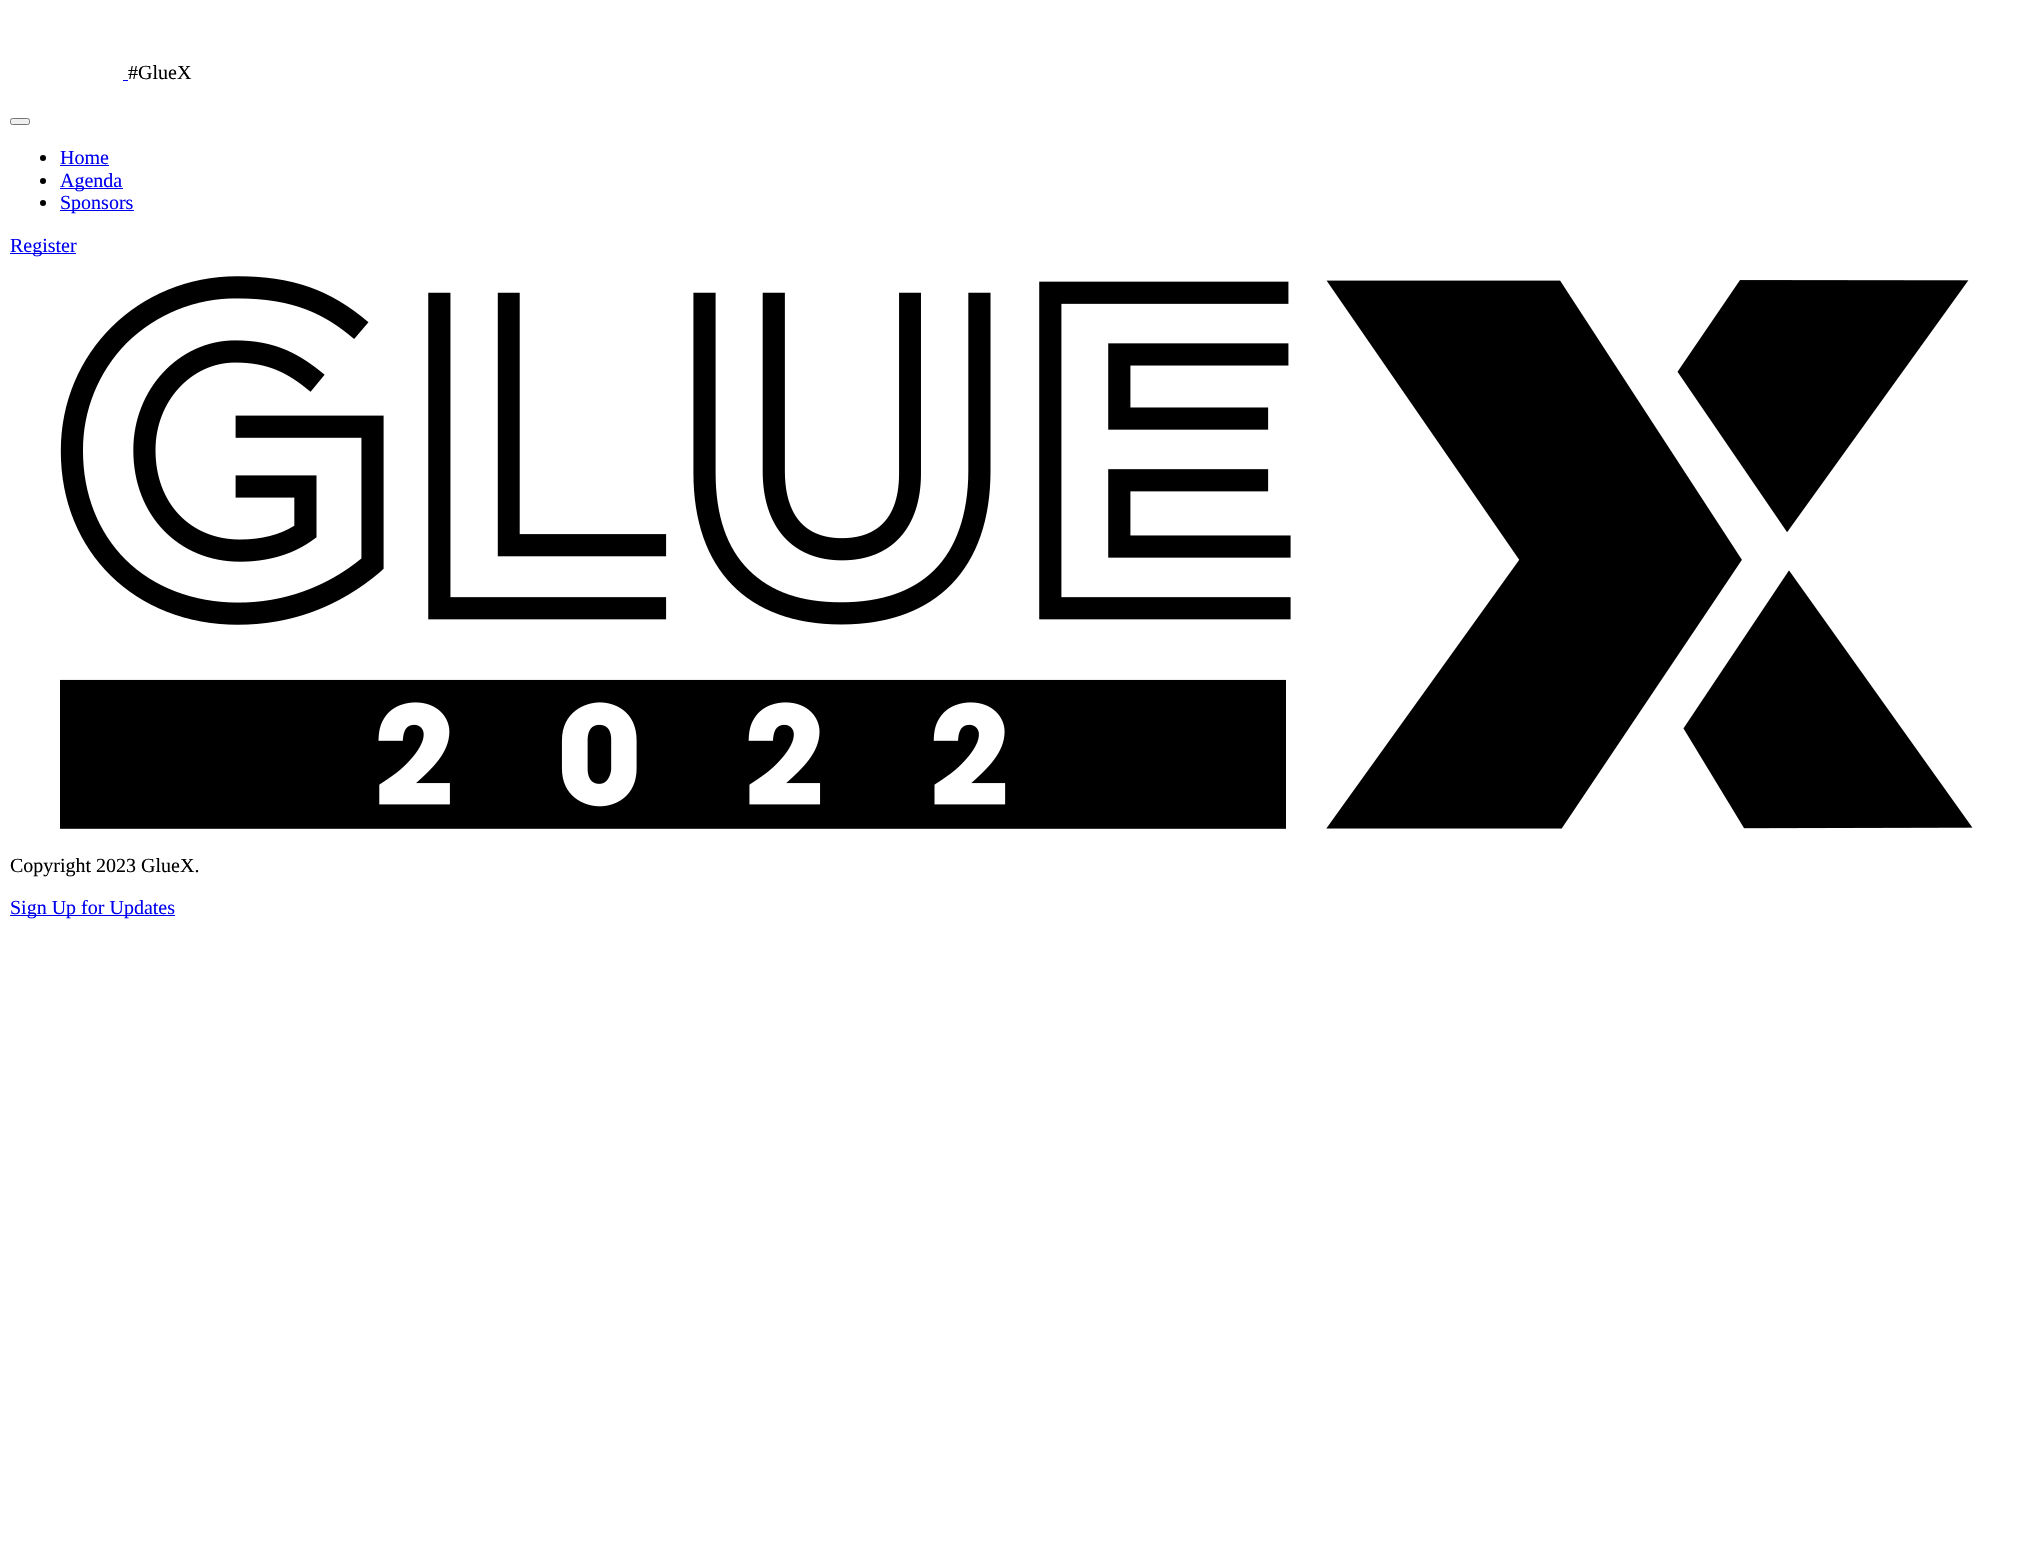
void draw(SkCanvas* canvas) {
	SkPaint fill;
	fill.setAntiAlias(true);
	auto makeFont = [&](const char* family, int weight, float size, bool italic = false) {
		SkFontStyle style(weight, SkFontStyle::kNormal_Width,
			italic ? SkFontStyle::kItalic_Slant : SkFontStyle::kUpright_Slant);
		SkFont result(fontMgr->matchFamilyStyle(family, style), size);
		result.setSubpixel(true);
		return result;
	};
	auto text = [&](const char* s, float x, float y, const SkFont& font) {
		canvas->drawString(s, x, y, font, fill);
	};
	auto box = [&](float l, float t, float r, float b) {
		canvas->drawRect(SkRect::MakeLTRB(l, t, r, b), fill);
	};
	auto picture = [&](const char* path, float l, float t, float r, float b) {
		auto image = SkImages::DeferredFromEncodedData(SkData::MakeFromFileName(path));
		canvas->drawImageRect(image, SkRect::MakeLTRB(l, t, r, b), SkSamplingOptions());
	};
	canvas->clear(0xFFFFFFFF);
	fill.setColor(0xFF0000EE);
	box(123, 80, 128, 81);
	fill.setColor(0xFFEFEFEF);
	canvas->drawRoundRect(SkRect::MakeLTRB(10.5f, 118.5f, 29.5f, 124.5f), 2, 2, fill);
	fill.setStyle(SkPaint::kStroke_Style);
	fill.setStrokeWidth(1);
	fill.setColor(0xFF767676);
	canvas->drawRoundRect(SkRect::MakeLTRB(10.5f, 118.5f, 29.5f, 124.5f), 2, 2, fill);
	fill.setStyle(SkPaint::kFill_Style);
	fill.setColor(0xFF000000);
	canvas->drawCircle(43, 158, 3, fill);
	fill.setColor(0xFF0000EE);
	box(60, 165, 109, 166);
	fill.setColor(0xFF000000);
	canvas->drawCircle(43, 181, 3, fill);
	fill.setColor(0xFF0000EE);
	box(60, 188, 123, 189);
	fill.setColor(0xFF000000);
	canvas->drawCircle(43, 203, 3, fill);
	fill.setColor(0xFF0000EE);
	box(60, 210, 134, 211);
	box(10, 253, 76, 254);
	picture("image0.png", 60, 276, 1973, 829);
	box(10, 915, 175, 916);
	auto font1 = makeFont("Liberation Serif", 400, 20);
	fill.setColor(0xFF000000);
	text("#GlueX", 128, 79, font1);
	fill.setColor(0xFF0000EE);
	text("Home", 60, 164, font1);
	text("Agenda", 60, 187, font1);
	text("Sponsors", 60, 209, font1);
	text("Register", 10, 252, font1);
	fill.setColor(0xFF000000);
	text("Copyright 2023 GlueX.", 10, 872, font1);
	fill.setColor(0xFF0000EE);
	text("Sign Up for Updates", 10, 914, font1);
}
